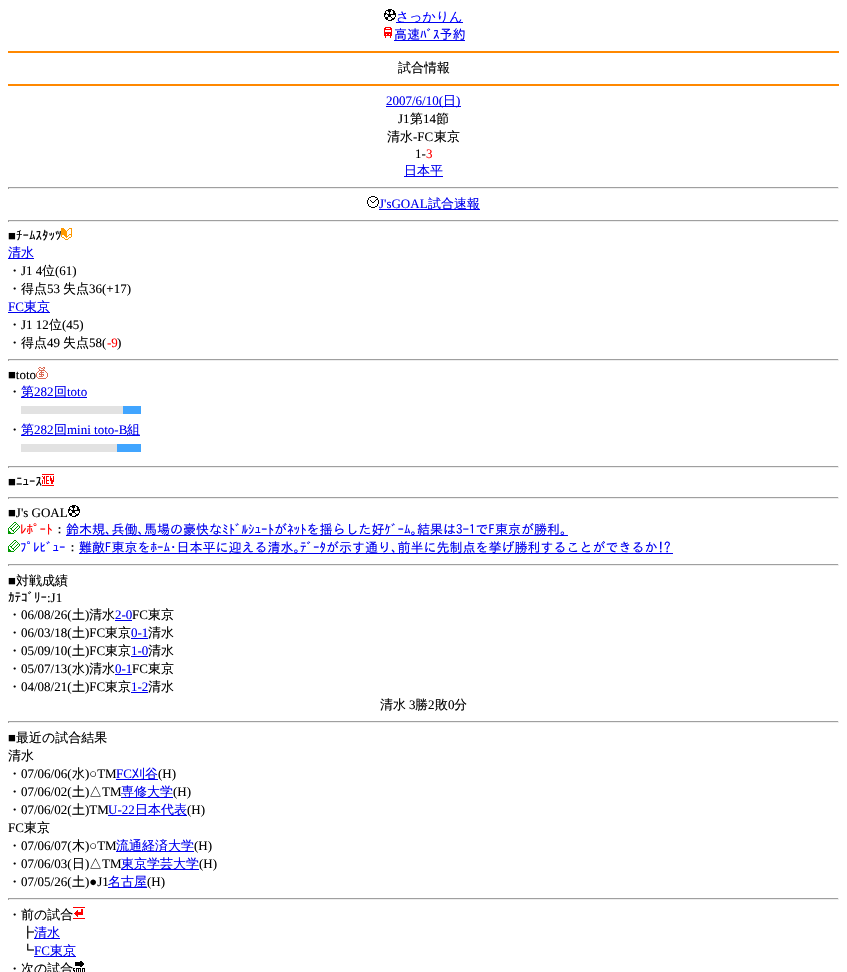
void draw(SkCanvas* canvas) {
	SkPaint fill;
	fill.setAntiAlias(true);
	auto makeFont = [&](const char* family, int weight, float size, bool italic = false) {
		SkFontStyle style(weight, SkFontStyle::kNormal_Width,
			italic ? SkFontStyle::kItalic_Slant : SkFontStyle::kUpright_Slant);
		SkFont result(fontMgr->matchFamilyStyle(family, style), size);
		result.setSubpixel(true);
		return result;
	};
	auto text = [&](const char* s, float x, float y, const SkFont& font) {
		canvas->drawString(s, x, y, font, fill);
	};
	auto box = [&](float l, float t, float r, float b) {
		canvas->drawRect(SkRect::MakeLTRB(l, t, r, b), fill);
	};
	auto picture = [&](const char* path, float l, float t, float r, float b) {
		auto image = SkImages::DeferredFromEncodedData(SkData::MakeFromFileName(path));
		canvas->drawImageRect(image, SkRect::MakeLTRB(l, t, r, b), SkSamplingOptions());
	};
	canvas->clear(0xFFFFFFFF);
	picture("image0.png", 384, 9, 396, 21);
	fill.setColor(0xFF0000EE);
	box(396, 22, 463, 23);
	picture("image1.png", 384, 27, 392, 38);
	box(394, 40, 465, 41);
	fill.setColor(0xFFFF8800);
	box(8, 51, 839, 53);
	box(8, 84, 839, 86);
	fill.setColor(0xFF0000EE);
	box(386, 106, 461, 107);
	box(404, 176, 443, 177);
	fill.setColor(0xFF9F9F9F);
	box(8, 187, 839, 188);
	fill.setColor(0xFFEEEEEE);
	box(838, 187, 839, 189);
	box(8, 188, 839, 189);
	fill.setColor(0xFF9F9F9F);
	box(8, 187, 9, 189);
	picture("image2.png", 367, 196, 379, 208);
	fill.setColor(0xFF0000EE);
	box(379, 209, 480, 210);
	fill.setColor(0xFF9F9F9F);
	box(8, 220, 839, 221);
	fill.setColor(0xFFEEEEEE);
	box(838, 220, 839, 222);
	box(8, 221, 839, 222);
	fill.setColor(0xFF9F9F9F);
	box(8, 220, 9, 222);
	picture("image3.png", 61, 228, 72, 240);
	fill.setColor(0xFF0000EE);
	box(8, 258, 34, 259);
	box(8, 312, 50, 313);
	fill.setColor(0xFF9F9F9F);
	box(8, 359, 839, 360);
	fill.setColor(0xFFEEEEEE);
	box(838, 359, 839, 361);
	box(8, 360, 839, 361);
	fill.setColor(0xFF9F9F9F);
	box(8, 359, 9, 361);
	picture("image4.png", 36, 367, 48, 379);
	fill.setColor(0xFF0000EE);
	box(21, 397, 87, 398);
	fill.setColor(0xFFE2E2E2);
	box(21, 406, 123, 414);
	fill.setColor(0xFF41A5FF);
	box(123, 406, 141, 414);
	fill.setColor(0xFF0000EE);
	box(21, 435, 140, 436);
	fill.setColor(0xFFE2E2E2);
	box(21, 444, 117, 452);
	fill.setColor(0xFF41A5FF);
	box(117, 444, 141, 452);
	fill.setColor(0xFF9F9F9F);
	box(8, 466, 839, 467);
	fill.setColor(0xFFEEEEEE);
	box(838, 466, 839, 468);
	box(8, 467, 839, 468);
	fill.setColor(0xFF9F9F9F);
	box(8, 466, 9, 468);
	picture("image5.png", 42, 474, 54, 486);
	box(8, 497, 839, 498);
	fill.setColor(0xFFEEEEEE);
	box(838, 497, 839, 499);
	box(8, 498, 839, 499);
	fill.setColor(0xFF9F9F9F);
	box(8, 497, 9, 499);
	picture("image0.png", 68, 505, 80, 517);
	picture("image6.png", 8, 522, 20, 534);
	fill.setColor(0xFF0000EE);
	box(66, 535, 568, 536);
	picture("image6.png", 8, 540, 20, 552);
	box(79, 553, 673, 554);
	fill.setColor(0xFF9F9F9F);
	box(8, 564, 839, 565);
	fill.setColor(0xFFEEEEEE);
	box(838, 564, 839, 566);
	box(8, 565, 839, 566);
	fill.setColor(0xFF9F9F9F);
	box(8, 564, 9, 566);
	fill.setColor(0xFF0000EE);
	box(115, 620, 132, 621);
	box(131, 638, 148, 639);
	box(131, 656, 148, 657);
	box(115, 674, 132, 675);
	box(131, 692, 148, 693);
	fill.setColor(0xFF9F9F9F);
	box(8, 721, 839, 722);
	fill.setColor(0xFFEEEEEE);
	box(838, 721, 839, 723);
	box(8, 722, 839, 723);
	fill.setColor(0xFF9F9F9F);
	box(8, 721, 9, 723);
	fill.setColor(0xFF0000EE);
	box(116, 779, 158, 780);
	box(121, 797, 173, 798);
	box(108, 815, 187, 816);
	box(116, 851, 194, 852);
	box(121, 869, 199, 870);
	box(108, 887, 147, 888);
	fill.setColor(0xFF9F9F9F);
	box(8, 898, 839, 899);
	fill.setColor(0xFFEEEEEE);
	box(838, 898, 839, 900);
	box(8, 899, 839, 900);
	fill.setColor(0xFF9F9F9F);
	box(8, 898, 9, 900);
	picture("image7.png", 73, 907, 85, 919);
	fill.setColor(0xFF0000EE);
	box(34, 938, 60, 939);
	box(34, 956, 76, 957);
	picture("image8.png", 73, 961, 85, 972);
	auto font1 = makeFont("WenQuanYi Zen Hei", 500, 13);
	fill.setColor(0xFF0000FF);
	text("さっかりん", 396, 21, font1);
	auto font2 = makeFont("IPAGothic", 400, 13);
	fill.setColor(0xFF0000EE);
	text("高速ﾊﾞｽ予約", 394, 39, font2);
	fill.setColor(0xFF000000);
	text("試合情報", 398, 72, font1);
	auto font3 = makeFont("Liberation Serif", 400, 13);
	fill.setColor(0xFF0000EE);
	text("2007/6/10(", 386, 105, font3);
	text("日", 443, 105, font1);
	text(")", 456, 105, font3);
	fill.setColor(0xFF000000);
	text("J1", 398, 123, font3);
	text("第", 410, 123, font1);
	text("14", 423, 123, font3);
	text("節", 436, 123, font1);
	text("清水", 387, 141, font1);
	text("-FC", 413, 141, font3);
	text("東京", 434, 141, font1);
	text("1-", 415, 158, font3);
	fill.setColor(0xFFFF0000);
	text("3", 426, 158, font3);
	fill.setColor(0xFF0000EE);
	text("日本平", 404, 175, font1);
	text("J'sGOAL", 379, 208, font3);
	text("試合速報", 428, 208, font1);
	fill.setColor(0xFF000000);
	text("■", 8, 240, font3);
	text("ﾁｰﾑｽﾀｯﾂ", 16, 240, font2);
	fill.setColor(0xFF0000EE);
	text("清水", 8, 257, font1);
	fill.setColor(0xFF000000);
	text("・", 8, 275, font1);
	text("J1 4", 21, 275, font3);
	text("位", 42, 275, font1);
	text("(61)", 55, 275, font3);
	text("・得点", 8, 293, font1);
	text("53", 47, 293, font3);
	text("失点", 63, 293, font1);
	text("36(+17)", 89, 293, font3);
	fill.setColor(0xFF0000EE);
	text("FC", 8, 311, font3);
	text("東京", 24, 311, font1);
	fill.setColor(0xFF000000);
	text("・", 8, 329, font1);
	text("J1 12", 21, 329, font3);
	text("位", 49, 329, font1);
	text("(45)", 62, 329, font3);
	text("・得点", 8, 347, font1);
	text("49", 47, 347, font3);
	text("失点", 63, 347, font1);
	text("58(", 89, 347, font3);
	fill.setColor(0xFFFF0000);
	text("-9", 107, 347, font3);
	fill.setColor(0xFF000000);
	text(")", 117, 347, font3);
	text("■toto", 8, 379, font3);
	text("・", 8, 396, font1);
	fill.setColor(0xFF0000EE);
	text("第", 21, 396, font1);
	text("282", 34, 396, font3);
	text("回", 54, 396, font1);
	text("toto", 67, 396, font3);
	fill.setColor(0xFF000000);
	text("・", 8, 434, font1);
	fill.setColor(0xFF0000EE);
	text("第", 21, 434, font1);
	text("282", 34, 434, font3);
	text("回", 54, 434, font1);
	text("mini toto-B", 67, 434, font3);
	text("組", 127, 434, font1);
	fill.setColor(0xFF000000);
	text("■", 8, 486, font3);
	text("ﾆｭｰｽ", 16, 486, font2);
	text("■J's GOAL", 8, 517, font3);
	fill.setColor(0xFFFF0000);
	text("ﾚﾎﾟｰﾄ", 20, 534, font2);
	fill.setColor(0xFF000000);
	text("：", 53, 534, font2);
	fill.setColor(0xFF0000EE);
	text("鈴木規､兵働､馬場の豪快なﾐﾄﾞﾙｼｭｰﾄがﾈｯﾄを揺らした好ｹﾞｰﾑ｡結果は3-1でF東京が勝利｡", 66, 534, font2);
	fill.setColor(0xFF0000FF);
	text("ﾌﾟﾚﾋﾞｭｰ", 20, 552, font2);
	fill.setColor(0xFF000000);
	text("：", 66, 552, font2);
	fill.setColor(0xFF0000EE);
	text("難敵F東京をﾎｰﾑ･日本平に迎える清水｡ﾃﾞｰﾀが示す通り､前半に先制点を挙げ勝利することができるか!?", 79, 552, font2);
	fill.setColor(0xFF000000);
	text("■", 8, 585, font3);
	text("対戦成績", 16, 585, font1);
	text("ｶﾃｺﾞﾘｰ", 8, 602, font2);
	text(":J1", 47, 602, font3);
	text("・", 8, 619, font1);
	text("06/08/26(", 21, 619, font3);
	text("土", 72, 619, font1);
	text(")", 85, 619, font3);
	text("清水", 89, 619, font1);
	fill.setColor(0xFF0000EE);
	text("2-0", 115, 619, font3);
	fill.setColor(0xFF000000);
	text("FC", 132, 619, font3);
	text("東京", 148, 619, font1);
	text("・", 8, 637, font1);
	text("06/03/18(", 21, 637, font3);
	text("土", 72, 637, font1);
	text(")FC", 85, 637, font3);
	text("東京", 105, 637, font1);
	fill.setColor(0xFF0000EE);
	text("0-1", 131, 637, font3);
	fill.setColor(0xFF000000);
	text("清水", 148, 637, font1);
	text("・", 8, 655, font1);
	text("05/09/10(", 21, 655, font3);
	text("土", 72, 655, font1);
	text(")FC", 85, 655, font3);
	text("東京", 105, 655, font1);
	fill.setColor(0xFF0000EE);
	text("1-0", 131, 655, font3);
	fill.setColor(0xFF000000);
	text("清水", 148, 655, font1);
	text("・", 8, 673, font1);
	text("05/07/13(", 21, 673, font3);
	text("水", 72, 673, font1);
	text(")", 85, 673, font3);
	text("清水", 89, 673, font1);
	fill.setColor(0xFF0000EE);
	text("0-1", 115, 673, font3);
	fill.setColor(0xFF000000);
	text("FC", 132, 673, font3);
	text("東京", 148, 673, font1);
	text("・", 8, 691, font1);
	text("04/08/21(", 21, 691, font3);
	text("土", 72, 691, font1);
	text(")FC", 85, 691, font3);
	text("東京", 105, 691, font1);
	fill.setColor(0xFF0000EE);
	text("1-2", 131, 691, font3);
	fill.setColor(0xFF000000);
	text("清水", 148, 691, font1);
	text("清水", 380, 709, font1);
	text("3", 409, 709, font3);
	text("勝", 415, 709, font1);
	text("2", 428, 709, font3);
	text("敗", 435, 709, font1);
	text("0", 448, 709, font3);
	text("分", 454, 709, font1);
	text("■", 8, 742, font3);
	text("最近の試合結果", 16, 742, font1);
	text("清水", 8, 760, font1);
	text("・", 8, 778, font1);
	text("07/06/06(", 21, 778, font3);
	text("水", 72, 778, font1);
	text(")○TM", 85, 778, font3);
	fill.setColor(0xFF0000EE);
	text("FC", 116, 778, font3);
	text("刈谷", 132, 778, font1);
	fill.setColor(0xFF000000);
	text("(H)", 158, 778, font3);
	text("・", 8, 796, font1);
	text("07/06/02(", 21, 796, font3);
	text("土", 72, 796, font1);
	text(")", 85, 796, font3);
	text("△", 89, 796, font1);
	text("TM", 102, 796, font3);
	fill.setColor(0xFF0000EE);
	text("専修大学", 121, 796, font1);
	fill.setColor(0xFF000000);
	text("(H)", 173, 796, font3);
	text("・", 8, 814, font1);
	text("07/06/02(", 21, 814, font3);
	text("土", 72, 814, font1);
	text(")TM", 85, 814, font3);
	fill.setColor(0xFF0000EE);
	text("U-22", 108, 814, font3);
	text("日本代表", 135, 814, font1);
	fill.setColor(0xFF000000);
	text("(H)", 187, 814, font3);
	text("FC", 8, 832, font3);
	text("東京", 24, 832, font1);
	text("・", 8, 850, font1);
	text("07/06/07(", 21, 850, font3);
	text("木", 72, 850, font1);
	text(")○TM", 85, 850, font3);
	fill.setColor(0xFF0000EE);
	text("流通経済大学", 116, 850, font1);
	fill.setColor(0xFF000000);
	text("(H)", 194, 850, font3);
	text("・", 8, 868, font1);
	text("07/06/03(", 21, 868, font3);
	text("日", 72, 868, font1);
	text(")", 85, 868, font3);
	text("△", 89, 868, font1);
	text("TM", 102, 868, font3);
	fill.setColor(0xFF0000EE);
	text("東京学芸大学", 121, 868, font1);
	fill.setColor(0xFF000000);
	text("(H)", 199, 868, font3);
	text("・", 8, 886, font1);
	text("07/05/26(", 21, 886, font3);
	text("土", 72, 886, font1);
	text(")●J1", 85, 886, font3);
	fill.setColor(0xFF0000EE);
	text("名古屋", 108, 886, font1);
	fill.setColor(0xFF000000);
	text("(H)", 147, 886, font3);
	text("・前の試合", 8, 919, font1);
	text("┣", 21, 937, font1);
	fill.setColor(0xFF0000EE);
	text("清水", 34, 937, font1);
	fill.setColor(0xFF000000);
	text("┗", 21, 955, font1);
	fill.setColor(0xFF0000EE);
	text("FC", 34, 955, font3);
	text("東京", 50, 955, font1);
	fill.setColor(0xFF000000);
	text("・次の試合", 8, 973, font1);
}
